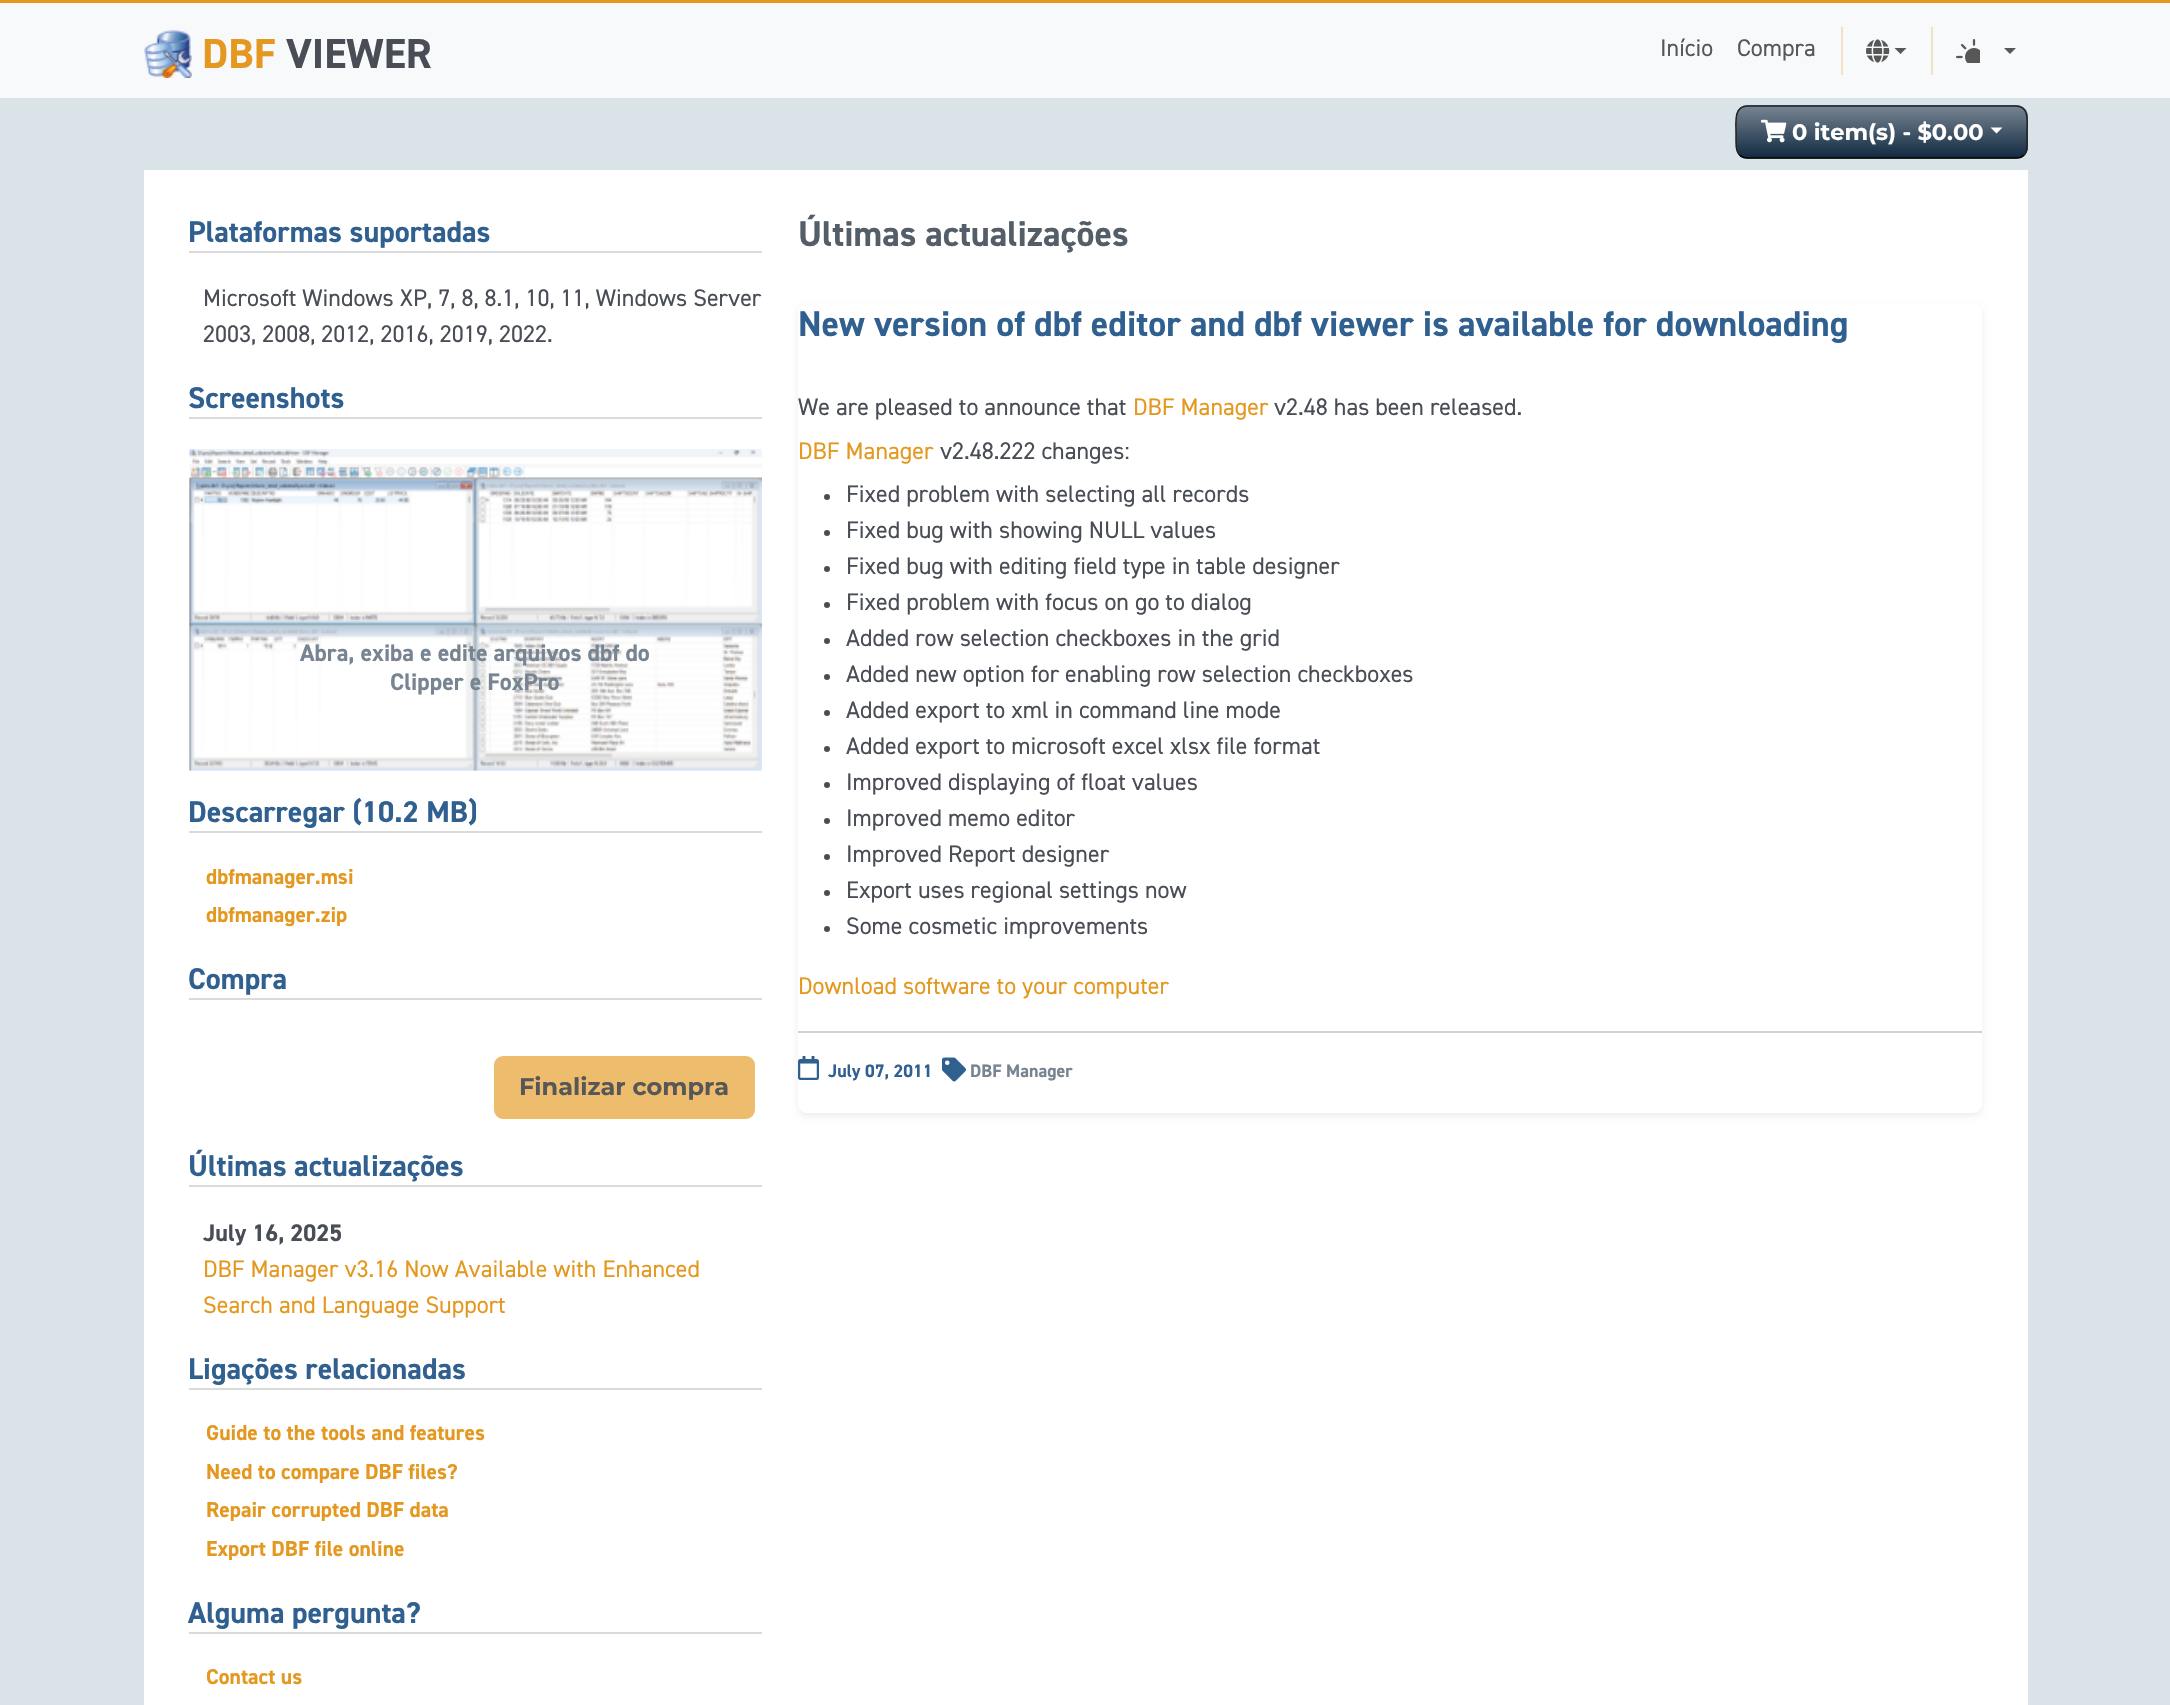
void draw(SkCanvas* canvas) {
	SkPaint fill;
	fill.setAntiAlias(true);
	auto makeFont = [&](const char* family, int weight, float size, bool italic = false) {
		SkFontStyle style(weight, SkFontStyle::kNormal_Width,
			italic ? SkFontStyle::kItalic_Slant : SkFontStyle::kUpright_Slant);
		SkFont result(fontMgr->matchFamilyStyle(family, style), size);
		result.setSubpixel(true);
		return result;
	};
	auto text = [&](const char* s, float x, float y, const SkFont& font) {
		canvas->drawString(s, x, y, font, fill);
	};
	auto box = [&](float l, float t, float r, float b) {
		canvas->drawRect(SkRect::MakeLTRB(l, t, r, b), fill);
	};
	auto roundBox = [&](float l, float t, float r, float b, float radius) {
		canvas->drawRoundRect(SkRect::MakeLTRB(l, t, r, b), radius, radius, fill);
	};
	auto picture = [&](const char* path, float l, float t, float r, float b) {
		auto image = SkImages::DeferredFromEncodedData(SkData::MakeFromFileName(path));
		canvas->drawImageRect(image, SkRect::MakeLTRB(l, t, r, b), SkSamplingOptions());
	};
	canvas->clear(0xFFDAE3E7);
	fill.setColor(0xFFF8F9FA);
	box(0, 3, 2170, 98);
	fill.setColor(0xFFE4981F);
	box(0, 0, 2170, 3);
	picture("image0.png", 144, 30, 192, 78);
	fill.setColor(0xFFF3E1C3);
	box(1841, 27, 1843, 75);
	picture("image1.png", 1866, 39, 1890, 63);
	fill.setColor(0xFF575758);
	canvas->drawPath(SkPathBuilder().moveTo(1894.5f, 48).lineTo(1906.5f, 48).lineTo(1900.5f, 54).close().detach(), fill);
	fill.setColor(0xFFF3E1C3);
	box(1931, 27, 1933, 75);
	picture("image2.png", 1956, 39, 1980, 63);
	fill.setColor(0xFF575758);
	canvas->drawPath(SkPathBuilder().moveTo(2004, 48).lineTo(2016, 48).lineTo(2010, 54).close().detach(), fill);
	fill.setColor(0xFF778492);
	roundBox(1736, 105, 2028, 159, 12);
	canvas->save();
	canvas->clipPath(SkPathBuilder().moveTo(1748, 105).lineTo(2016, 105).cubicTo(2022.5f, 105, 2028, 110.5f, 2028, 117).lineTo(2028, 147).cubicTo(2028, 153.5f, 2022.5f, 159, 2016, 159).lineTo(1748, 159).cubicTo(1741.5f, 159, 1736, 153.5f, 1736, 147).lineTo(1736, 117).cubicTo(1736, 110.5f, 1741.5f, 105, 1748, 105).close().detach(), true);
	{
		const SkColor colors[] = {0xFF778492, 0xFF112A41};
		const float stops[] = {0, 1};
		const SkPoint ends[] = {{1882, 106}, {1882, 158}};
		fill.setShader(SkGradientShader::MakeLinear(ends, colors, stops, 2, SkTileMode::kClamp));
		fill.setAlpha(255);
	}
	box(1736, 107, 2028, 158);
	canvas->restore();
	fill.setStyle(SkPaint::kStroke_Style);
	fill.setStrokeWidth(1.5f);
	fill.setShader(nullptr);
	fill.setColor(0xFF000000);
	canvas->drawPath(SkPathBuilder().moveTo(2024, 155).cubicTo(2022, 157, 2019, 158, 2016, 158).lineTo(1747.5f, 158).cubicTo(1744.5f, 158, 1741.5f, 157, 1739.5f, 155).detach(), fill);
	fill.setColor(0xFF222222);
	canvas->drawPath(SkPathBuilder().moveTo(1739.5f, 155).cubicTo(1736, 151.5f, 1736, 147, 1736, 142).lineTo(1736, 132).cubicTo(1736, 123, 1733.5f, 106, 1747.5f, 106).lineTo(2016, 106).cubicTo(2030, 106, 2027, 123, 2027, 132).lineTo(2027, 142).cubicTo(2027, 147, 2027.5f, 151.5f, 2024, 155).detach(), fill);
	picture("image3.png", 1761, 119, 1787, 143);
	fill.setStyle(SkPaint::kFill_Style);
	fill.setColor(0xFFFFFFFF);
	canvas->drawPath(SkPathBuilder().moveTo(1990.5f, 127.5f).lineTo(2002.5f, 127.5f).lineTo(1996.5f, 133.5f).close().detach(), fill);
	box(144, 170, 2028, 1705);
	fill.setColor(0xFFDADADA);
	box(189, 251, 762, 253);
	box(189, 417, 762, 419);
	picture("image4.png", 189, 449, 762, 771);
	box(189, 831, 762, 833);
	box(189, 998, 762, 1000);
	fill.setColor(0xFFEDBC6D);
	canvas->drawRoundRect(SkRect::MakeLTRB(495, 1057, 754, 1118), 8, 8, fill);
	fill.setStyle(SkPaint::kStroke_Style);
	fill.setStrokeWidth(2);
	canvas->drawRoundRect(SkRect::MakeLTRB(495, 1057, 754, 1118), 8, 8, fill);
	fill.setStyle(SkPaint::kFill_Style);
	fill.setColor(0xFFDADADA);
	box(189, 1185, 762, 1187);
	box(189, 1388, 762, 1390);
	box(189, 1632, 762, 1634);
	canvas->save();
	canvas->clipPath(SkPathBuilder(SkPathFillType::kEvenOdd).moveTo(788, 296).lineTo(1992, 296).lineTo(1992, 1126).lineTo(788, 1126).close().moveTo(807, 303).lineTo(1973, 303).cubicTo(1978, 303, 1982, 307, 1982, 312).lineTo(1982, 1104).cubicTo(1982, 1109, 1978, 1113, 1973, 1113).lineTo(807, 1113).cubicTo(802, 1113, 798, 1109, 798, 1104).lineTo(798, 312).cubicTo(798, 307, 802, 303, 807, 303).close().detach(), true);
	fill.setColor(0x12000000);
	fill.setMaskFilter(SkMaskFilter::MakeBlur(kNormal_SkBlurStyle, 3));
	canvas->drawRoundRect(SkRect::MakeLTRB(798, 306, 1982, 1116), 9, 9, fill);
	fill.setMaskFilter(nullptr);
	canvas->restore();
	fill.setColor(0xFF494D55);
	canvas->drawCircle(827, 497, 3, fill);
	canvas->drawCircle(827, 533, 3, fill);
	canvas->drawCircle(827, 569, 3, fill);
	canvas->drawCircle(827, 605, 3, fill);
	canvas->drawCircle(827, 641, 3, fill);
	canvas->drawCircle(827, 677, 3, fill);
	canvas->drawCircle(827, 713, 3, fill);
	canvas->drawCircle(827, 749, 3, fill);
	canvas->drawCircle(827, 785, 3, fill);
	canvas->drawCircle(827, 821, 3, fill);
	canvas->drawCircle(827, 857, 3, fill);
	canvas->drawCircle(827, 893, 3, fill);
	canvas->drawCircle(827, 929, 3, fill);
	fill.setColor(0x40494D55);
	box(798, 1031, 1982, 1033);
	picture("image5.png", 798, 1056, 819, 1080);
	picture("image6.png", 942, 1057, 966, 1082);
	auto font1 = makeFont("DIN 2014", 700, 42);
	fill.setColor(0xFFE4981F);
	text("DBF", 202, 68, font1);
	fill.setColor(0xFF494D55);
	text("VIEWER", 286, 68, font1);
	auto font2 = makeFont("DIN 2014", 400, 24);
	fill.setColor(0xFF575758);
	text("Início", 1660, 56, font2);
	text("Compra", 1737, 56, font2);
	auto font3 = makeFont("Montserrat", 700, 22.5f);
	fill.setColor(0xFFFFFFFF);
	text("0 item(s) - $0.00", 1792, 140, font3);
	auto font4 = makeFont("DIN 2014", 700, 30);
	fill.setColor(0xFF306090);
	text("Plataformas suportadas", 188, 242, font4);
	fill.setColor(0xFF494D55);
	text("Microsoft Windows XP, 7, 8, 8.1, 10, 11, Windows Server", 203, 306, font2);
	text("2003, 2008, 2012, 2016, 2019, 2022.", 203, 342, font2);
	fill.setColor(0xFF306090);
	text("Screenshots", 188, 408, font4);
	auto font5 = makeFont("DIN 2014", 700, 24);
	fill.setColor(0xFF778492);
	text("Abra, exiba e edite arquivos dbf do", 300, 661, font5);
	text("Clipper e FoxPro", 390, 690, font5);
	fill.setColor(0xFF306090);
	text("Descarregar (10.2 MB)", 188, 822, font4);
	auto font6 = makeFont("DIN 2014", 700, 21.6f);
	fill.setColor(0xFFE4981F);
	text("dbfmanager.msi", 206, 884, font6);
	text("dbfmanager.zip", 206, 922, font6);
	fill.setColor(0xFF306090);
	text("Compra", 188, 989, font4);
	auto font7 = makeFont("Montserrat", 700, 24);
	fill.setColor(0xFF575758);
	text("Finalizar compra", 519, 1095, font7);
	fill.setColor(0xFF306090);
	text("Últimas actualizações", 188, 1176, font4);
	fill.setColor(0xFF494D55);
	text("July 16, 2025", 203, 1241, font5);
	fill.setColor(0xFFE4981F);
	text("DBF Manager v3.16 Now Available with Enhanced", 203, 1277, font2);
	text("Search and Language Support", 203, 1313, font2);
	fill.setColor(0xFF306090);
	text("Ligações relacionadas", 188, 1379, font4);
	fill.setColor(0xFFE4981F);
	text("Guide to the tools and features", 206, 1440, font6);
	text("Need to compare DBF files?", 206, 1479, font6);
	text("Repair corrupted DBF data", 206, 1517, font6);
	text("Export DBF file online", 206, 1556, font6);
	fill.setColor(0xFF306090);
	text("Alguma pergunta?", 188, 1623, font4);
	fill.setColor(0xFFE4981F);
	text("Contact us", 206, 1684, font6);
	auto font8 = makeFont("DIN 2014", 700, 36);
	fill.setColor(0xFF545E69);
	text("Últimas actualizações", 798, 246, font8);
	fill.setColor(0xFF306090);
	text("New version of dbf editor and dbf viewer is available for downloading", 798, 336, font8);
	fill.setColor(0xFF494D55);
	text("We are pleased to announce that", 798, 415, font2);
	fill.setColor(0xFFE4981F);
	text("DBF Manager", 1133, 415, font2);
	fill.setColor(0xFF494D55);
	text("v2.48 has been released.", 1274, 415, font2);
	fill.setColor(0xFFE4981F);
	text("DBF Manager", 798, 459, font2);
	fill.setColor(0xFF494D55);
	text("v2.48.222 changes:", 940, 459, font2);
	text("Fixed problem with selecting all records", 846, 502, font2);
	text("Fixed bug with showing NULL values", 846, 538, font2);
	text("Fixed bug with editing field type in table designer", 846, 574, font2);
	text("Fixed problem with focus on go to dialog", 846, 610, font2);
	text("Added row selection checkboxes in the grid", 846, 646, font2);
	text("Added new option for enabling row selection checkboxes", 846, 682, font2);
	text("Added export to xml in command line mode", 846, 718, font2);
	text("Added export to microsoft excel xlsx file format", 846, 754, font2);
	text("Improved displaying of float values", 846, 790, font2);
	text("Improved memo editor", 846, 826, font2);
	text("Improved Report designer", 846, 862, font2);
	text("Export uses regional settings now", 846, 898, font2);
	text("Some cosmetic improvements", 846, 934, font2);
	fill.setColor(0xFFE4981F);
	text("Download software to your computer", 798, 994, font2);
	auto font9 = makeFont("DIN 2014", 700, 18);
	fill.setColor(0xFF306090);
	text("July 07, 2011", 828, 1077, font9);
	fill.setColor(0xFF778492);
	text("DBF Manager", 970, 1077, font9);
}
